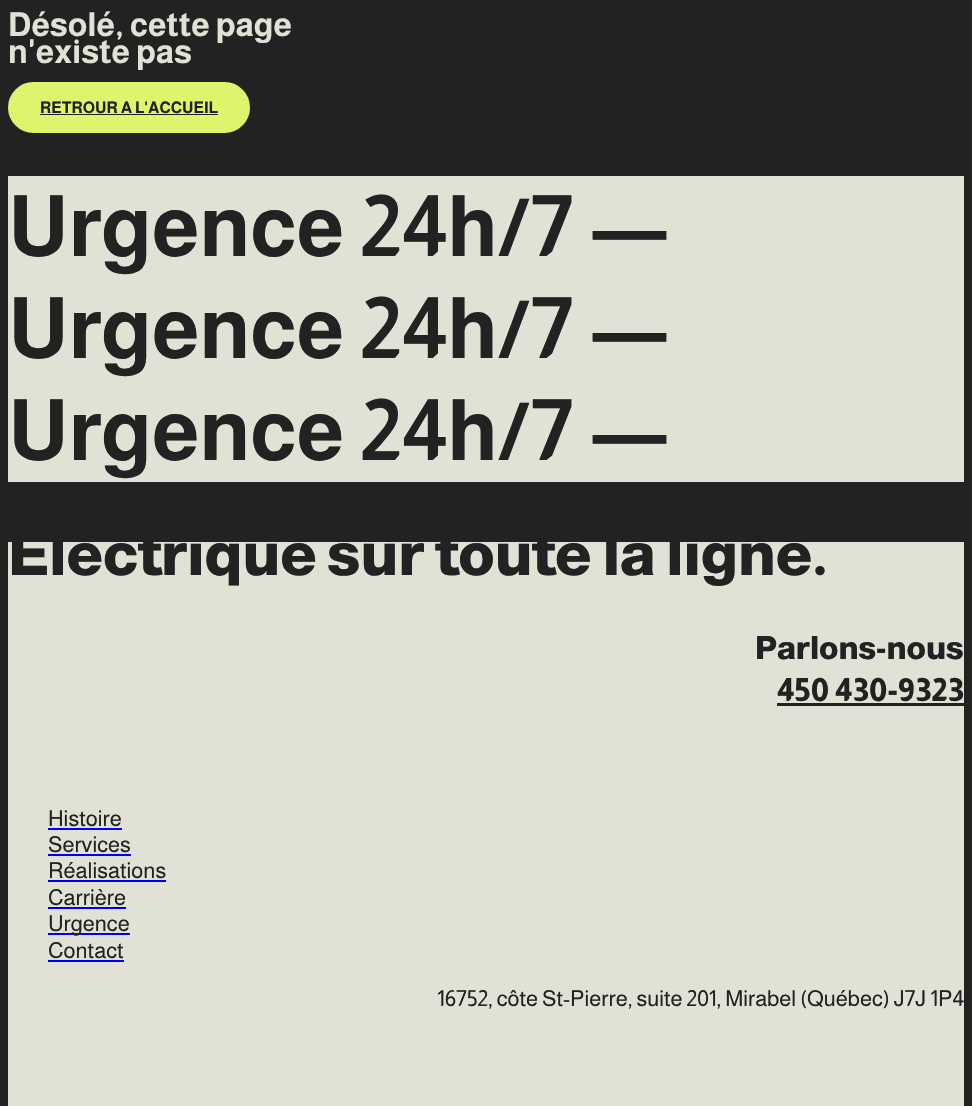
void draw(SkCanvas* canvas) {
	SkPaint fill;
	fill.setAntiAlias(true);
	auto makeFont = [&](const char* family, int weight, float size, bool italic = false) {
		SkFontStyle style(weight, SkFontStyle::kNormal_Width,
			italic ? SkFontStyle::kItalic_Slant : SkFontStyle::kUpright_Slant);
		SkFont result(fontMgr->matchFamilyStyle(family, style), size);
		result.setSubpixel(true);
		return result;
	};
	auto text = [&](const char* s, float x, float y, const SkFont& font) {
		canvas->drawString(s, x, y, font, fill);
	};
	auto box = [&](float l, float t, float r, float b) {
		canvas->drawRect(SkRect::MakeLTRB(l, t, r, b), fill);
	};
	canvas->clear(0xFF222222);
	fill.setColor(0xFFDFF36D);
	canvas->drawRoundRect(SkRect::MakeLTRB(9, 83, 249, 132), 24.5f, 24.5f, fill);
	fill.setStyle(SkPaint::kStroke_Style);
	fill.setStrokeWidth(2);
	canvas->drawRoundRect(SkRect::MakeLTRB(9, 83, 249, 132), 24.5f, 24.5f, fill);
	fill.setStyle(SkPaint::kFill_Style);
	fill.setColor(0xFF222222);
	box(40, 114, 218, 115);
	fill.setColor(0xFFE1E1D5);
	box(8, 176, 964, 482);
	box(8, 542, 964, 1106);
	fill.setColor(0xFF222222);
	box(777, 703, 964, 706);
	fill.setColor(0xFF0000EE);
	box(48, 828, 122, 830);
	box(48, 854, 131, 856);
	box(48, 880, 166, 882);
	box(48, 907, 126, 909);
	box(48, 933, 130, 935);
	box(48, 960, 124, 962);
	auto font1 = makeFont("Almarai", 700, 33);
	fill.setColor(0xFFE1E1D5);
	text("Désolé, cette page", 8, 36, font1);
	text("n'existe pas", 8, 63, font1);
	auto font2 = makeFont("Almarai", 700, 16);
	fill.setColor(0xFF222222);
	text("RETROUR A L'ACCUEIL", 40, 113, font2);
	auto font3 = makeFont("Almarai", 700, 85);
	text("Urgence 24h/7 —", 8, 256, font3);
	text("Urgence 24h/7 —", 8, 358, font3);
	text("Urgence 24h/7 —", 8, 460, font3);
	auto font4 = makeFont("Almarai", 800, 60);
	text("Électrique sur toute la ligne.", 8, 575, font4);
	auto font5 = makeFont("Almarai", 800, 32);
	text("Parlons-nous", 755, 659, font5);
	text("450 430-9323", 777, 701, font5);
	auto font6 = makeFont("Almarai", 400, 22);
	text("Histoire", 48, 826, font6);
	text("Services", 48, 852, font6);
	text("Réalisations", 48, 878, font6);
	text("Carrière", 48, 905, font6);
	text("Urgence", 48, 931, font6);
	text("Contact", 48, 958, font6);
	text("16752, côte St-Pierre, suite 201, Mirabel (Québec) J7J 1P4", 437, 1006, font6);
}
